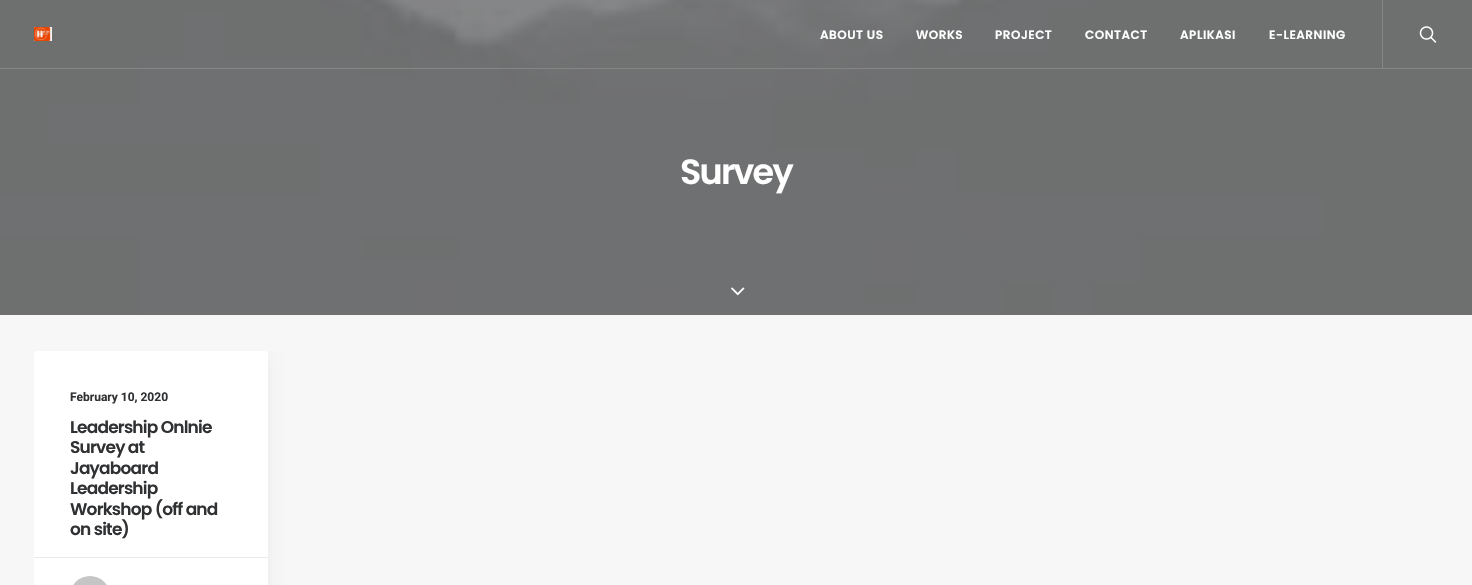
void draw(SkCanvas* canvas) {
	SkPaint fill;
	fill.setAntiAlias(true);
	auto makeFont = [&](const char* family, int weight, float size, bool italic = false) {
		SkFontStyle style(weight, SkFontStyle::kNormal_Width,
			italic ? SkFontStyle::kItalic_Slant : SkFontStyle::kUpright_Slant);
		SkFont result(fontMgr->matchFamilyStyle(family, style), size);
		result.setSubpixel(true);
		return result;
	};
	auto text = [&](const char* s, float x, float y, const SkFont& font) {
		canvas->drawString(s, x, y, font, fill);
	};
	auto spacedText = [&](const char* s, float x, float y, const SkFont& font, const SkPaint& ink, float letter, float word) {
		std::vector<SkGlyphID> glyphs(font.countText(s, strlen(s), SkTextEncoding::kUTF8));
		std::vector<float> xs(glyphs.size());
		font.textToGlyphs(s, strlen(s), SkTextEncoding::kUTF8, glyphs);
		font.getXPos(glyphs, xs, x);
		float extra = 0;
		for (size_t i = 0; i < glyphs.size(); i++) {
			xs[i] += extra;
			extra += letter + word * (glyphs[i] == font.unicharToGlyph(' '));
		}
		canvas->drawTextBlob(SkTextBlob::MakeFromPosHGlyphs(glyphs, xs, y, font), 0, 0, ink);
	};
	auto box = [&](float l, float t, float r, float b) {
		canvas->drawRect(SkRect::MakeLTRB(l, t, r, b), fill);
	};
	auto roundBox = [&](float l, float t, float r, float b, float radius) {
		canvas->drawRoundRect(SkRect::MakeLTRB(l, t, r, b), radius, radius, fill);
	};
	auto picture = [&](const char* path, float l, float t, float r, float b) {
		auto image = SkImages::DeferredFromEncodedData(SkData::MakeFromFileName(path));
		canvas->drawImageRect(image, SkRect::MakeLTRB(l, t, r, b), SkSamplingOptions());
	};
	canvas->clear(0xFFFFFFFF);
	picture("image2.png", 0, 0, 1472, 315);
	fill.setColor(0xFF858586);
	box(0, 68, 1472, 69);
	picture("image0.png", 34, 27, 52, 41);
	fill.setColor(0xFF848586);
	box(1382, 0, 1383, 68);
	picture("image1.png", 1419, 26, 1437, 43);
	picture("image3.png", 731, 287, 745, 296);
	fill.setColor(0xFFF7F7F7);
	box(0, 315, 1472, 585);
	canvas->save();
	canvas->clipRect(SkRect::MakeLTRB(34, 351, 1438, 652));
	fill.setColor(0x0D000000);
	fill.setMaskFilter(SkMaskFilter::MakeBlur(kNormal_SkBlurStyle, 7.5f));
	canvas->drawRoundRect(SkRect::MakeLTRB(34, 356, 268, 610), 2, 2, fill);
	fill.setMaskFilter(nullptr);
	canvas->restore();
	fill.setColor(0xFFFFFFFF);
	roundBox(34, 351, 268, 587, 2);
	fill.setColor(0xFFEAEAEA);
	box(34, 557, 268, 558);
	picture("image4.png", 73, 576, 107, 585);
	auto font1 = makeFont("Poppins", 600, 12);
	fill.setColor(0xFFFFFFFF);
	spacedText("ABOUT US", 820, 39, font1, fill, 0.5f, 0);
	spacedText("WORKS", 916, 39, font1, fill, 0.5f, 0);
	spacedText("PROJECT", 995, 39, font1, fill, 0.5f, 0);
	spacedText("CONTACT", 1085, 39, font1, fill, 0.5f, 0);
	spacedText("APLIKASI", 1180, 39, font1, fill, 0.5f, 0);
	spacedText("E-LEARNING", 1269, 39, font1, fill, 0.5f, 0);
	auto font2 = makeFont("Poppins", 600, 35);
	spacedText("Survey", 680, 184, font2, fill, -1.75f, 0);
	auto font3 = makeFont("Roboto", 700, 12);
	fill.setColor(0xFF303133);
	text("February 10, 2020", 70, 401, font3);
	auto font4 = makeFont("Poppins", 600, 17);
	spacedText("Leadership Onlnie", 70, 433, font4, fill, -0.8f, 0);
	spacedText("Survey at", 70, 453, font4, fill, -0.8f, 0);
	spacedText("Jayaboard", 70, 474, font4, fill, -0.8f, 0);
	spacedText("Leadership", 70, 494, font4, fill, -0.8f, 0);
	spacedText("Workshop (off and", 70, 515, font4, fill, -0.8f, 0);
	spacedText("on site)", 70, 535, font4, fill, -0.8f, 0);
}
